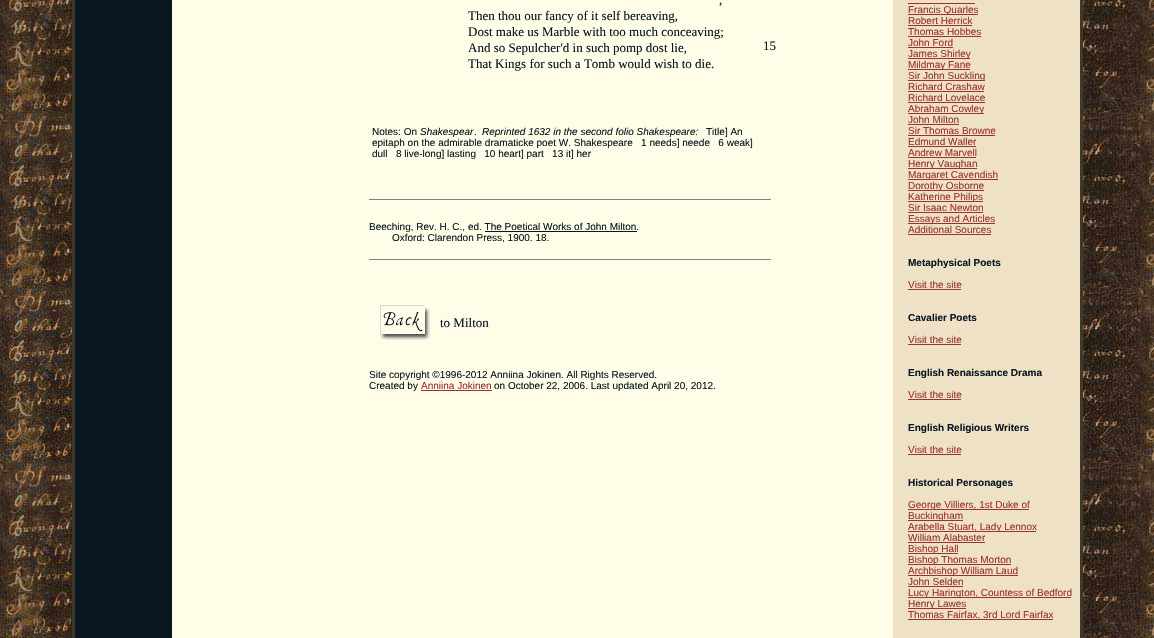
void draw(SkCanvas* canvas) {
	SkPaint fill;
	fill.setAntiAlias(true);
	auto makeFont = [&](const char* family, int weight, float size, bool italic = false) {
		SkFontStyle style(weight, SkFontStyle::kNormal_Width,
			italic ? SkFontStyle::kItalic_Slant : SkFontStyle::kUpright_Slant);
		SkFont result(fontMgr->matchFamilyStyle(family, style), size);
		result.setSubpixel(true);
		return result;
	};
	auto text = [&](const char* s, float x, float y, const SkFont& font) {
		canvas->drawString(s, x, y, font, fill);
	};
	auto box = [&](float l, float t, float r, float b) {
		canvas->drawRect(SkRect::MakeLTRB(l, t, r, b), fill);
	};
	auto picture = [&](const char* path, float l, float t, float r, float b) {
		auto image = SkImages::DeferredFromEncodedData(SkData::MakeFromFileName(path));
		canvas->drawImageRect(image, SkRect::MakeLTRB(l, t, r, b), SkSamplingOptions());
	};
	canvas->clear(0xFFFFFFFF);
	picture("image0.png", 0, 0, 1154, 638);
	fill.setColor(0xFF3F3A26);
	box(72, 0, 1083, 638);
	fill.setColor(0xFFFFFDE8);
	box(172, 0, 893, 638);
	fill.setColor(0xFF081721);
	box(75, 0, 172, 638);
	fill.setColor(0xFF808080);
	box(369, 199, 771, 200);
	fill.setColor(0xFF081721);
	box(485, 231, 637, 232);
	fill.setColor(0xFF808080);
	box(369, 259, 771, 260);
	picture("image1.png", 380, 305, 430, 340);
	fill.setColor(0xFF993333);
	box(421, 390, 492, 391);
	fill.setColor(0xFFEEE1C6);
	box(893, 0, 1080, 638);
	fill.setColor(0xFF993333);
	box(908, 3, 975, 4);
	box(908, 14, 978, 15);
	box(908, 25, 972, 26);
	box(908, 36, 981, 37);
	box(908, 47, 953, 48);
	box(908, 58, 970, 59);
	box(908, 69, 970, 70);
	box(908, 80, 985, 81);
	box(908, 91, 984, 92);
	box(908, 102, 985, 103);
	box(908, 113, 984, 114);
	box(908, 124, 959, 125);
	box(908, 135, 995, 136);
	box(908, 146, 976, 147);
	box(908, 157, 976, 158);
	box(908, 168, 977, 169);
	box(908, 179, 998, 180);
	box(908, 190, 984, 191);
	box(908, 201, 983, 202);
	box(908, 212, 983, 213);
	box(908, 223, 995, 224);
	box(908, 234, 991, 235);
	box(908, 289, 961, 290);
	box(908, 344, 961, 345);
	box(908, 399, 961, 400);
	box(908, 454, 961, 455);
	box(908, 509, 1029, 510);
	box(908, 520, 963, 521);
	box(908, 531, 1036, 532);
	box(908, 542, 985, 543);
	box(908, 553, 958, 554);
	box(908, 564, 1011, 565);
	box(908, 575, 1018, 576);
	box(908, 586, 963, 587);
	box(908, 597, 1071, 598);
	box(908, 608, 966, 609);
	box(908, 619, 1053, 620);
	auto font1 = makeFont("Liberation Serif", 400, 13);
	fill.setColor(0xFF081721);
	text(",", 719, 4, font1);
	text("Then thou our fancy of it self bereaving,", 468, 20, font1);
	text("Dost make us Marble with too much conceaving;", 468, 36, font1);
	text("And so Sepulcher'd in such pomp dost lie,", 468, 52, font1);
	text("That Kings for such a Tomb would wish to die.", 468, 68, font1);
	text("15", 763, 50, font1);
	auto font2 = makeFont("Liberation Sans", 400, 10);
	text("Notes: On", 372, 135, font2);
	auto font3 = makeFont("Liberation Sans", 400, 10, true);
	text("Shakespear", 420, 135, font3);
	text(".", 474, 135, font2);
	text("Reprinted 1632 in the second folio Shakespeare:", 482, 135, font3);
	text("Title] An", 706, 135, font2);
	text("epitaph on the admirable dramaticke poet W. Shakespeare   1 needs] neede   6 weak]", 372, 146, font2);
	text("dull   8 live-long] lasting   10 heart] part   13 it] her", 372, 157, font2);
	text("Beeching, Rev. H. C., ed. The Poetical Works of John Milton.", 369, 230, font2);
	text("Oxford: Clarendon Press, 1900. 18.", 392, 241, font2);
	text("to Milton", 440, 327, font1);
	text("Site copyright ©1996-2012 Anniina Jokinen. All Rights Reserved.", 369, 378, font2);
	text("Created by", 369, 389, font2);
	fill.setColor(0xFF993333);
	text("Anniina Jokinen", 421, 389, font2);
	fill.setColor(0xFF081721);
	text("on October 22, 2006. Last updated April 20, 2012.", 494, 389, font2);
	fill.setColor(0xFF993333);
	text("Francis Quarles", 908, 13, font2);
	text("Robert Herrick", 908, 24, font2);
	text("Thomas Hobbes", 908, 35, font2);
	text("John Ford", 908, 46, font2);
	text("James Shirley", 908, 57, font2);
	text("Mildmay Fane", 908, 68, font2);
	text("Sir John Suckling", 908, 79, font2);
	text("Richard Crashaw", 908, 90, font2);
	text("Richard Lovelace", 908, 101, font2);
	text("Abraham Cowley", 908, 112, font2);
	text("John Milton", 908, 123, font2);
	text("Sir Thomas Browne", 908, 134, font2);
	text("Edmund Waller", 908, 145, font2);
	text("Andrew Marvell", 908, 156, font2);
	text("Henry Vaughan", 908, 167, font2);
	text("Margaret Cavendish", 908, 178, font2);
	text("Dorothy Osborne", 908, 189, font2);
	text("Katherine Philips", 908, 200, font2);
	text("Sir Isaac Newton", 908, 211, font2);
	text("Essays and Articles", 908, 222, font2);
	text("Additional Sources", 908, 233, font2);
	auto font4 = makeFont("Liberation Sans", 700, 10);
	fill.setColor(0xFF081721);
	text("Metaphysical Poets", 908, 266, font4);
	fill.setColor(0xFF993333);
	text("Visit the site", 908, 288, font2);
	fill.setColor(0xFF081721);
	text("Cavalier Poets", 908, 321, font4);
	fill.setColor(0xFF993333);
	text("Visit the site", 908, 343, font2);
	fill.setColor(0xFF081721);
	text("English Renaissance Drama", 908, 376, font4);
	fill.setColor(0xFF993333);
	text("Visit the site", 908, 398, font2);
	fill.setColor(0xFF081721);
	text("English Religious Writers", 908, 431, font4);
	fill.setColor(0xFF993333);
	text("Visit the site", 908, 453, font2);
	fill.setColor(0xFF081721);
	text("Historical Personages", 908, 486, font4);
	fill.setColor(0xFF993333);
	text("George Villiers, 1st Duke of", 908, 508, font2);
	text("Buckingham", 908, 519, font2);
	text("Arabella Stuart, Lady Lennox", 908, 530, font2);
	text("William Alabaster", 908, 541, font2);
	text("Bishop Hall", 908, 552, font2);
	text("Bishop Thomas Morton", 908, 563, font2);
	text("Archbishop William Laud", 908, 574, font2);
	text("John Selden", 908, 585, font2);
	text("Lucy Harington, Countess of Bedford", 908, 596, font2);
	text("Henry Lawes", 908, 607, font2);
	text("Thomas Fairfax, 3rd Lord Fairfax", 908, 618, font2);
}
